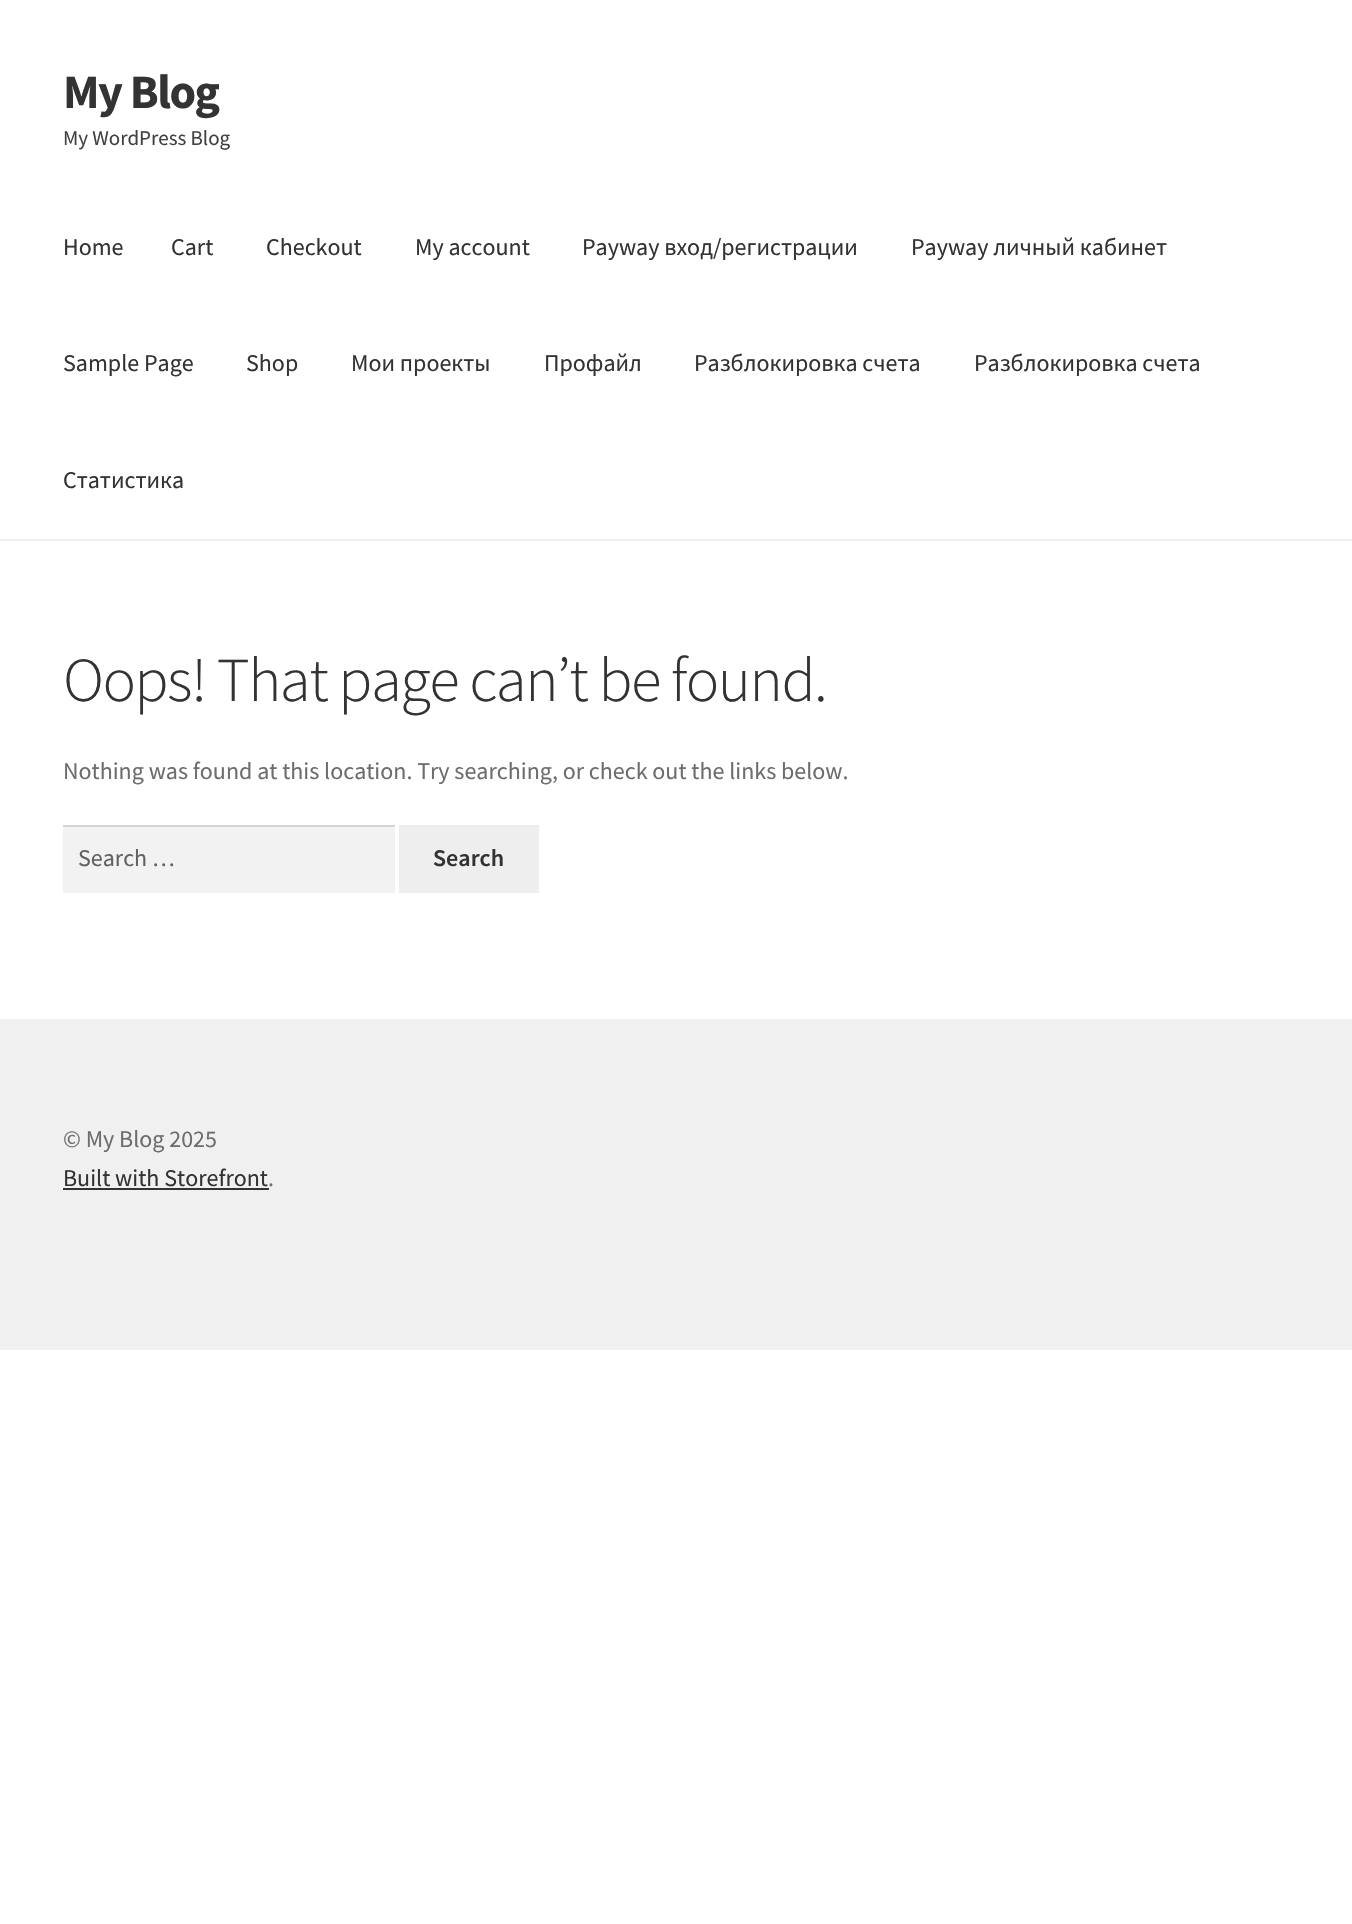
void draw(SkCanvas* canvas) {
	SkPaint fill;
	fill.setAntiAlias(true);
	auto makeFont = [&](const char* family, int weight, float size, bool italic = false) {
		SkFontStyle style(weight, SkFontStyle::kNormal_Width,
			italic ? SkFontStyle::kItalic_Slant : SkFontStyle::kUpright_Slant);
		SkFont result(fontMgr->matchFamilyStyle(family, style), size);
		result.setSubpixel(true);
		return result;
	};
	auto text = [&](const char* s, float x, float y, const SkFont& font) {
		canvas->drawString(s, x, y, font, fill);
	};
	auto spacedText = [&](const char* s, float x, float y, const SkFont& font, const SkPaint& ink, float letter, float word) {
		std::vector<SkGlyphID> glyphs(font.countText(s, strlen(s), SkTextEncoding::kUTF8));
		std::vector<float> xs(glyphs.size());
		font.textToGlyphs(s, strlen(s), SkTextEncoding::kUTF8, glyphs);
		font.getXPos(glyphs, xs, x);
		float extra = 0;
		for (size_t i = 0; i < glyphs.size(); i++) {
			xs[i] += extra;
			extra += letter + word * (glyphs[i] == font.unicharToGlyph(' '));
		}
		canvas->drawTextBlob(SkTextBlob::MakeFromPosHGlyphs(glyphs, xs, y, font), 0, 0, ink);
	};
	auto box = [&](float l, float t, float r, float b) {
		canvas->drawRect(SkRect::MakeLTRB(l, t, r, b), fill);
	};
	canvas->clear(0xFFFFFFFF);
	fill.setColor(0xFFF0F0F0);
	box(0, 539, 1352, 541);
	fill.setColor(0xFFF2F2F2);
	box(63, 827, 395, 893);
	fill.setColor(0xFFD4D4D4);
	box(63, 825, 395, 827);
	fill.setColor(0xFFEEEEEE);
	box(399, 825, 539, 893);
	fill.setColor(0xFFF0F0F0);
	box(0, 1019, 1352, 1350);
	fill.setColor(0xFF333333);
	box(63, 1188, 269, 1190);
	auto font1 = makeFont("Source Sans Pro", 700, 48);
	spacedText("My Blog", 63, 108, font1, fill, -1.5f, 0);
	auto font2 = makeFont("Source Sans Pro", 400, 21);
	fill.setColor(0xFF404040);
	text("My WordPress Blog", 63, 145, font2);
	auto font3 = makeFont("Source Sans Pro", 400, 24);
	fill.setColor(0xFF333333);
	text("Home", 63, 255, font3);
	text("Cart", 171, 255, font3);
	text("Checkout", 266, 255, font3);
	text("My account", 415, 255, font3);
	text("Payway вход/регистрации", 582, 255, font3);
	text("Payway личный кабинет", 911, 255, font3);
	text("Sample Page", 63, 371, font3);
	text("Shop", 246, 371, font3);
	text("Мои проекты", 351, 371, font3);
	text("Профайл", 544, 371, font3);
	text("Разблокировка счета", 694, 371, font3);
	text("Разблокировка счета", 974, 371, font3);
	text("Статистика", 63, 488, font3);
	auto font4 = makeFont("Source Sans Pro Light", 300, 62.75f);
	spacedText("Oops! That page can’t be found.", 63, 701, font4, fill, -1.5f, 0);
	fill.setColor(0xFF6D6D6D);
	text("Nothing was found at this location. Try searching, or check out the links below.", 63, 779, font3);
	fill.setColor(0xFF616161);
	text("Search …", 78, 866, font3);
	auto font5 = makeFont("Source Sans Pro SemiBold", 600, 24);
	fill.setColor(0xFF333333);
	text("Search", 433, 866, font5);
	fill.setColor(0xFF6D6D6D);
	text("© My Blog 2025", 63, 1147, font3);
	fill.setColor(0xFF333333);
	text("Built with Storefront", 63, 1186, font3);
	fill.setColor(0xFF6D6D6D);
	text(".", 268, 1186, font3);
}
